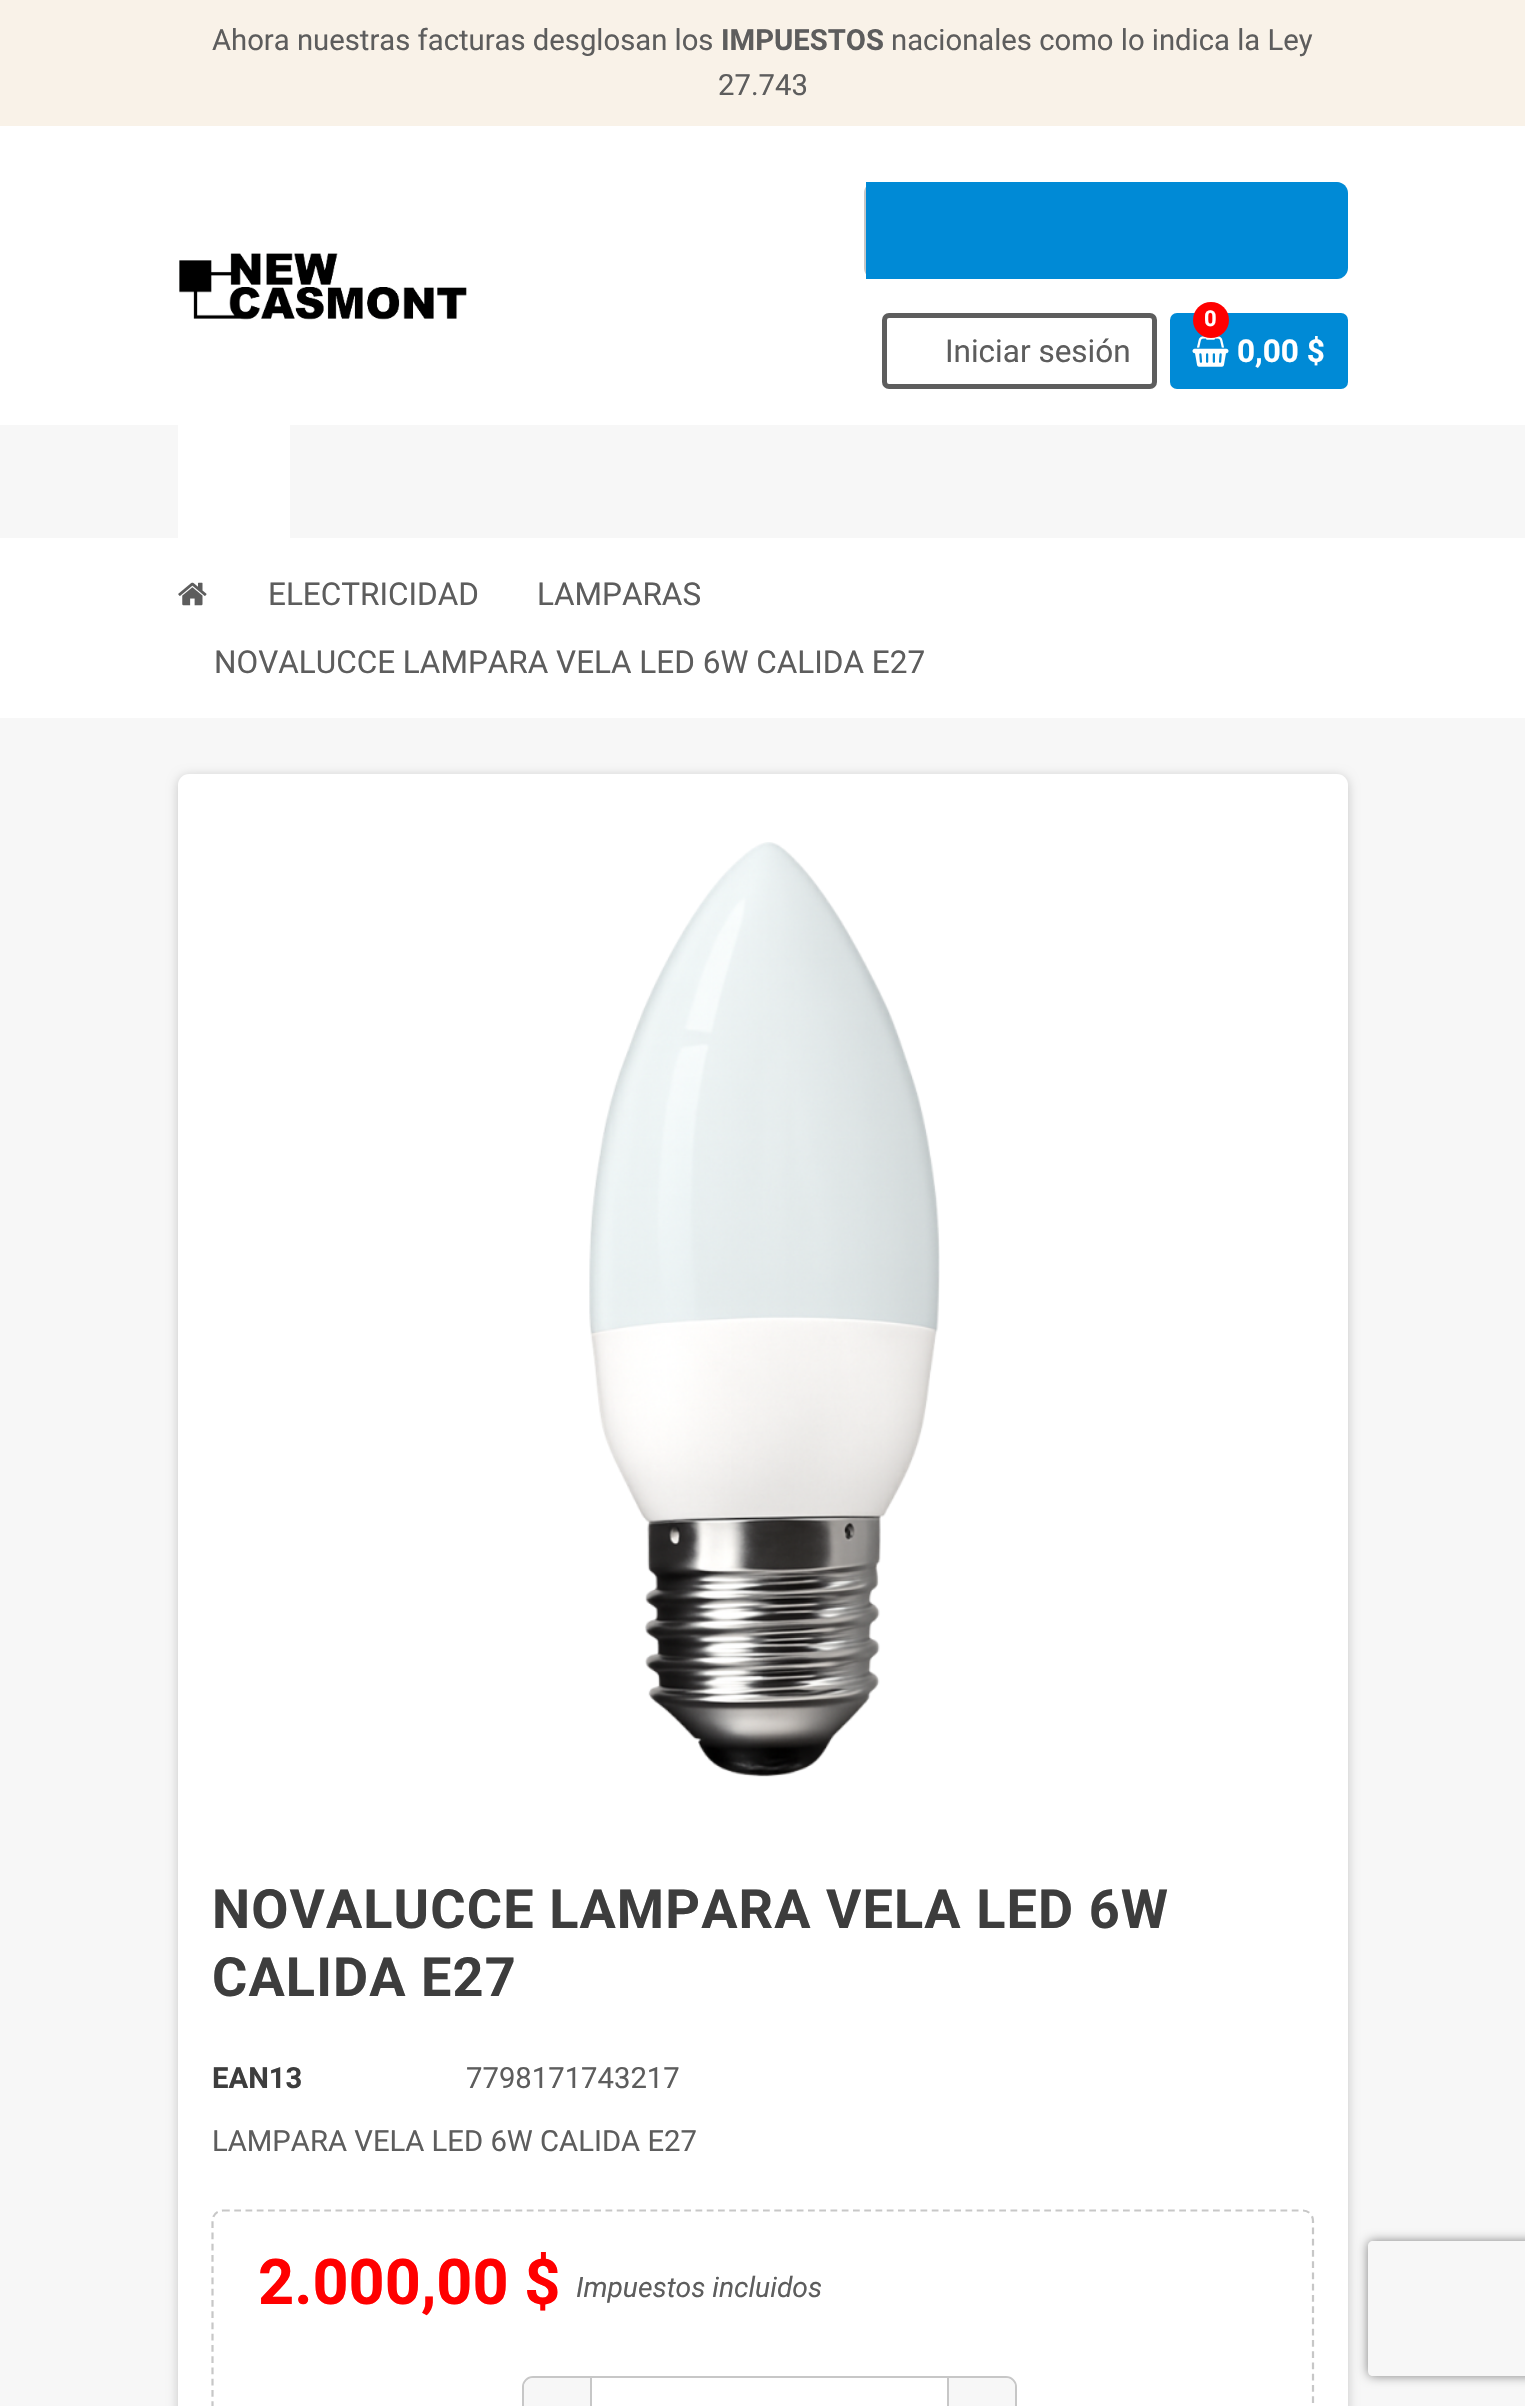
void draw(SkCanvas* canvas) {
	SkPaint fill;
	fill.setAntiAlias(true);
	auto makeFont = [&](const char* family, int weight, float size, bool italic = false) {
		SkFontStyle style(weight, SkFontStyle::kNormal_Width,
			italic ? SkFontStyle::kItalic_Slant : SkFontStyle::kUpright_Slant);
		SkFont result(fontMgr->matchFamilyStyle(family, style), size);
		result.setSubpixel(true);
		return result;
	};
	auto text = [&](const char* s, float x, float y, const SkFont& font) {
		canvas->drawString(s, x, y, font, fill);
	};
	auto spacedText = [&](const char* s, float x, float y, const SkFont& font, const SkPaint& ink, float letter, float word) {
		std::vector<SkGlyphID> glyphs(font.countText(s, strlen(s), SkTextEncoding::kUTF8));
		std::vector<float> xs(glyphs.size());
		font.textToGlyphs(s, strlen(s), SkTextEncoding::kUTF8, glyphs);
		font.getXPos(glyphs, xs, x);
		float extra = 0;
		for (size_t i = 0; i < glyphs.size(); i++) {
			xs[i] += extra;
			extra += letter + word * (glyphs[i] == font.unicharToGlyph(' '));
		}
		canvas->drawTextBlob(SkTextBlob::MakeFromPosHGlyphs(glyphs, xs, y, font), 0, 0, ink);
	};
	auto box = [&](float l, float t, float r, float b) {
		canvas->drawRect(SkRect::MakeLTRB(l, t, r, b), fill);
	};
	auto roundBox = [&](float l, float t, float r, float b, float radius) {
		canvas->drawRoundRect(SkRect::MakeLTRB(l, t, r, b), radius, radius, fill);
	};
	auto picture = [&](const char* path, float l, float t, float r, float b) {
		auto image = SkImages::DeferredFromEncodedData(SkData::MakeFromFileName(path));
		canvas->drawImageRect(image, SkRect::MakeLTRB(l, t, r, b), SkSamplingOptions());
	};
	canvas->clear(0xFFFFFFFF);
	fill.setColor(0xFFF9F2E8);
	box(0, 0, 1525, 126);
	picture("image0.png", 179, 253, 467, 320);
	fill.setStyle(SkPaint::kStroke_Style);
	fill.setStrokeWidth(2);
	fill.setColor(0xFFC7C7C7);
	canvas->drawRoundRect(SkRect::MakeLTRB(865, 183, 1345, 278), 10, 10, fill);
	fill.setStyle(SkPaint::kFill_Style);
	fill.setColor(0xFF008AD6);
	canvas->drawPath(SkPathBuilder().moveTo(866, 182).lineTo(1337, 182).cubicTo(1343, 182, 1348, 187, 1348, 193).lineTo(1348, 268).cubicTo(1348, 274, 1343, 279, 1337, 279).lineTo(866, 279).close().detach(), fill);
	fill.setStyle(SkPaint::kStroke_Style);
	fill.setStrokeWidth(5);
	fill.setColor(0xFF5D5D5D);
	canvas->drawRoundRect(SkRect::MakeLTRB(884.5f, 315.5f, 1154.5f, 386.5f), 4.5f, 4.5f, fill);
	fill.setStyle(SkPaint::kFill_Style);
	fill.setColor(0xFF008AD6);
	roundBox(1170, 313, 1348, 389, 7);
	picture("image1.png", 1192, 336, 1229, 367);
	fill.setColor(0xFFFF0000);
	canvas->drawCircle(1211, 320, 18, fill);
	fill.setColor(0xFFF7F7F7);
	box(0, 425, 1525, 538);
	fill.setColor(0xFFFFFFFF);
	box(178, 425, 290, 538);
	fill.setColor(0xFFF7F7F7);
	box(0, 718, 1525, 2406);
	picture("image2.png", 178, 582, 207, 606);
	fill.setColor(0x33000000);
	fill.setMaskFilter(SkMaskFilter::MakeBlur(kNormal_SkBlurStyle, 5.5f));
	canvas->drawRoundRect(SkRect::MakeLTRB(178, 776, 1348, 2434), 11, 11, fill);
	fill.setMaskFilter(nullptr);
	fill.setColor(0xFFFFFFFF);
	roundBox(178, 774, 1348, 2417, 11);
	picture("image3.png", 589, 842, 940, 1777);
	fill.setStyle(SkPaint::kStroke_Style);
	fill.setStrokeWidth(2.2f);
	fill.setColor(0xFFC7C7C7);
	fill.setPathEffect(SkDashPathEffect::Make({{6.75f, 4.5f}}, 0));
	canvas->drawPath(SkPathBuilder().moveTo(223, 2210.5f).lineTo(1303, 2210.5f).cubicTo(1308.5f, 2210.5f, 1313, 2215, 1313, 2221).lineTo(1313, 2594).cubicTo(1313, 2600, 1308.5f, 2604.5f, 1303, 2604.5f).lineTo(223, 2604.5f).cubicTo(217, 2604.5f, 212.5f, 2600, 212.5f, 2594).lineTo(212.5f, 2221).cubicTo(212.5f, 2215, 217, 2210.5f, 223, 2210.5f).close().detach(), fill);
	fill.setPathEffect(nullptr);
	fill.setStrokeWidth(2);
	canvas->drawRoundRect(SkRect::MakeLTRB(523, 2377, 1016, 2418), 10, 10, fill);
	fill.setStyle(SkPaint::kFill_Style);
	fill.setColor(0xFFF7F7F7);
	canvas->drawPath(SkPathBuilder().moveTo(533, 2378).lineTo(592, 2378).lineTo(592, 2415).lineTo(533, 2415).cubicTo(528, 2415, 524, 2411, 524, 2406).lineTo(524, 2387).cubicTo(524, 2382, 528, 2378, 533, 2378).close().detach(), fill);
	canvas->drawPath(SkPathBuilder().moveTo(947, 2378).lineTo(1006, 2378).cubicTo(1011, 2378, 1015, 2382, 1015, 2387).lineTo(1015, 2406).cubicTo(1015, 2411, 1011, 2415, 1006, 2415).lineTo(947, 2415).close().detach(), fill);
	fill.setColor(0xFFC7C7C7);
	box(947, 2378, 949, 2406);
	box(590, 2378, 592, 2406);
	canvas->save();
	canvas->clipPath(SkPathBuilder(SkPathFillType::kEvenOdd).moveTo(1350, 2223).lineTo(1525, 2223).lineTo(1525, 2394).lineTo(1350, 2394).close().moveTo(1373, 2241).lineTo(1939, 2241).cubicTo(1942, 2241, 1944, 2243, 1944, 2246).lineTo(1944, 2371).cubicTo(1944, 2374, 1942, 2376, 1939, 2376).lineTo(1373, 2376).cubicTo(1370, 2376, 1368, 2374, 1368, 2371).lineTo(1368, 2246).cubicTo(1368, 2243, 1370, 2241, 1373, 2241).close().detach(), true);
	fill.setColor(0xFF808080);
	fill.setMaskFilter(SkMaskFilter::MakeBlur(kNormal_SkBlurStyle, 5.5f));
	canvas->drawRoundRect(SkRect::MakeLTRB(1368, 2241, 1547, 2376), 5, 5, fill);
	fill.setMaskFilter(nullptr);
	canvas->restore();
	auto font1 = makeFont("Roboto", 400, 29.25f);
	fill.setColor(0xFF5D5D5D);
	text("Ahora nuestras facturas desglosan los", 212, 50, font1);
	auto font2 = makeFont("Roboto", 700, 29.25f);
	text("IMPUESTOS", 721, 50, font2);
	text("nacionales como lo indica la Ley", 891, 50, font1);
	text("27.743", 718, 95, font1);
	auto font3 = makeFont("Roboto", 400, 31.5f);
	text("Iniciar sesión", 945, 362, font3);
	auto font4 = makeFont("Roboto", 700, 22);
	fill.setColor(0xFFFFFFFF);
	text("0", 1204, 326, font4);
	auto font5 = makeFont("Roboto", 700, 31.5f);
	text("0,00 $", 1237, 362, font5);
	fill.setColor(0xFF5D5D5D);
	text("ELECTRICIDAD", 268, 605, font3);
	text("LAMPARAS", 537, 605, font3);
	text("NOVALUCCE LAMPARA VELA LED 6W CALIDA E27", 214, 673, font3);
	auto font6 = makeFont("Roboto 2", 700, 54);
	fill.setColor(0xFF3D3D3D);
	spacedText("NOVALUCCE LAMPARA VELA LED 6W", 212, 1928, font6, fill, 1.1f, 0);
	spacedText("CALIDA E27", 212, 1996, font6, fill, 1.1f, 0);
	text("EAN13", 212, 2088, font2);
	fill.setColor(0xFF5D5D5D);
	text("7798171743217", 466, 2088, font1);
	text("LAMPARA VELA LED 6W CALIDA E27", 212, 2151, font1);
	auto font7 = makeFont("Roboto", 700, 63);
	fill.setColor(0xFFFF0000);
	text("2.000,00 $", 258, 2304, font7);
	auto font8 = makeFont("Roboto", 400, 28.25f, true);
	fill.setColor(0xFF5D5D5D);
	text("Impuestos incluidos", 576, 2297, font8);
}
